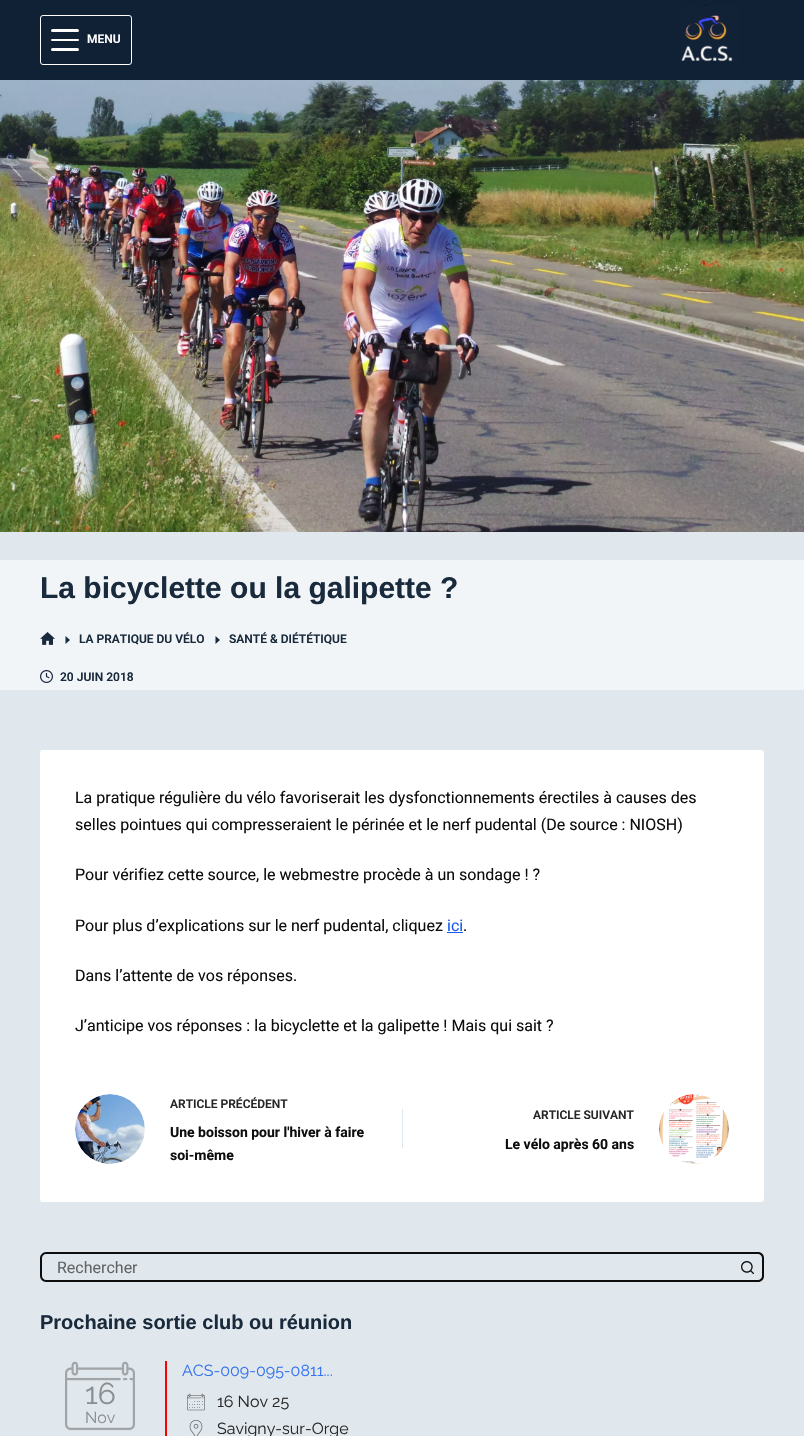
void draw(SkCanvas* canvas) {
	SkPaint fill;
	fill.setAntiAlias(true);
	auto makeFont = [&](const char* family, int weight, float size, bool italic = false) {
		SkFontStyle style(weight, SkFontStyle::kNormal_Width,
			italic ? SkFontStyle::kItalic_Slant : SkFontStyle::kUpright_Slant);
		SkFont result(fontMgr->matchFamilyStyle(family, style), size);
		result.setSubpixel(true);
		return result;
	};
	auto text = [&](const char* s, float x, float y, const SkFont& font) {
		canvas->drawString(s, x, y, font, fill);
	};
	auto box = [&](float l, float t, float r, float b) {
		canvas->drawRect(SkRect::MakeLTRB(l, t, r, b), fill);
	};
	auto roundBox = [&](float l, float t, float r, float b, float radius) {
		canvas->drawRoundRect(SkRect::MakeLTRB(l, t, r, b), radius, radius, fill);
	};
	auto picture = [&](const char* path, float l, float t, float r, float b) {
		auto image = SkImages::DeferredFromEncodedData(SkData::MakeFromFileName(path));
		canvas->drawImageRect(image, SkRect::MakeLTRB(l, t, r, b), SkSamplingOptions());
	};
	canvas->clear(0xFFE1E8ED);
	fill.setColor(0xFF102136);
	box(0, 0, 804, 80);
	fill.setStyle(SkPaint::kStroke_Style);
	fill.setStrokeWidth(1);
	fill.setColor(0xFFFFFFFF);
	canvas->drawRoundRect(SkRect::MakeLTRB(40.5f, 15.5f, 131.5f, 64.5f), 2.5f, 2.5f, fill);
	fill.setStyle(SkPaint::kFill_Style);
	roundBox(51, 29, 79, 32, 1.5f);
	roundBox(51, 39, 79, 41, 1);
	roundBox(51, 48, 79, 51, 1.5f);
	picture("image0.png", 681, 5, 740, 62);
	picture("image1.png", 0, 80, 804, 532);
	fill.setColor(0xFFF2F5F7);
	box(0, 560, 804, 690);
	picture("image2.png", 40, 632, 55, 645);
	fill.setColor(0xFF192A3D);
	canvas->drawPath(SkPathBuilder().moveTo(65.5f, 636).lineTo(70, 640).lineTo(65.5f, 644).close().detach(), fill);
	canvas->drawPath(SkPathBuilder().moveTo(215.5f, 636).lineTo(220, 640).lineTo(215.5f, 644).close().detach(), fill);
	picture("image3.png", 40, 670, 53, 683);
	fill.setColor(0xFFFFFFFF);
	roundBox(40, 750, 764, 1202, 3);
	fill.setColor(0xFF1559ED);
	box(447, 932, 463, 933);
	picture("image4.png", 75, 1094, 145, 1164);
	fill.setColor(0xFFE1E8ED);
	box(402, 1109, 403, 1148);
	picture("image5.png", 659, 1094, 729, 1164);
	fill.setColor(0xFF0E0E0E);
	canvas->drawPath(SkPathBuilder(SkPathFillType::kEvenOdd).moveTo(46, 1252).lineTo(734, 1252).lineTo(734, 1282).lineTo(46, 1282).cubicTo(43, 1282, 40, 1279, 40, 1276).lineTo(40, 1258).cubicTo(40, 1255, 43, 1252, 46, 1252).close().moveTo(46, 1254).lineTo(734, 1254).lineTo(734, 1280).lineTo(46, 1280).cubicTo(44, 1280, 42, 1278, 42, 1276).lineTo(42, 1258).cubicTo(42, 1256, 44, 1254, 46, 1254).close().detach(), fill);
	canvas->drawPath(SkPathBuilder(SkPathFillType::kEvenOdd).moveTo(734, 1252).lineTo(758, 1252).cubicTo(761.5f, 1252, 764, 1254.5f, 764, 1258).lineTo(764, 1276).cubicTo(764, 1279.5f, 761.5f, 1282, 758, 1282).lineTo(734, 1282).close().moveTo(734, 1254).lineTo(758, 1254).cubicTo(760, 1254, 762, 1256, 762, 1258).lineTo(762, 1276).cubicTo(762, 1278, 760, 1280, 758, 1280).lineTo(734, 1280).close().detach(), fill);
	picture("image6.png", 741, 1261, 754, 1274);
	picture("image7.png", 65, 1361, 135, 1431);
	fill.setColor(0xFFFF0000);
	box(165, 1361, 167, 1436);
	picture("image8.png", 187, 1393, 205, 1411);
	picture("image9.png", 189, 1420, 203, 1436);
	auto font1 = makeFont("Roboto", 600, 12);
	fill.setColor(0xFFFFFFFF);
	text("MENU", 87, 43, font1);
	auto font2 = makeFont("Liberation Sans", 700, 30);
	fill.setColor(0xFF192A3D);
	text("La bicyclette ou la galipette ?", 40, 598, font2);
	text("LA PRATIQUE DU VÉLO", 79, 643, font1);
	text("SANTÉ & DIÉTÉTIQUE", 229, 643, font1);
	text("20 JUIN 2018", 60, 681, font1);
	auto font3 = makeFont("Roboto", 400, 16);
	fill.setColor(0xFF0E0E0E);
	text("La pratique régulière du vélo favoriserait les dysfonctionnements érectiles à causes des", 75, 803, font3);
	text("selles pointues qui compresseraient le périnée et le nerf pudental (De source : NIOSH)", 75, 830, font3);
	text("Pour vérifiez cette source, le webmestre procède à un sondage ! ?", 75, 880, font3);
	text("Pour plus d’explications sur le nerf pudental, cliquez", 75, 931, font3);
	fill.setColor(0xFF1559ED);
	text("ici", 447, 931, font3);
	fill.setColor(0xFF0E0E0E);
	text(".", 463, 931, font3);
	text("Dans l’attente de vos réponses.", 75, 981, font3);
	text("J’anticipe vos réponses : la bicyclette et la galipette ! Mais qui sait ?", 75, 1031, font3);
	fill.setColor(0xFF262626);
	text("ARTICLE PRÉCÉDENT", 170, 1108, font1);
	auto font4 = makeFont("Roboto", 700, 14);
	fill.setColor(0xFF0E0E0E);
	text("Une boisson pour l'hiver à faire", 170, 1137, font4);
	text("soi-même", 170, 1160, font4);
	fill.setColor(0xFF262626);
	text("ARTICLE SUIVANT", 533, 1119, font1);
	fill.setColor(0xFF0E0E0E);
	text("Le vélo après 60 ans", 505, 1149, font4);
	fill.setColor(0xFF626567);
	text("Rechercher", 57, 1273, font3);
	auto font5 = makeFont("Liberation Sans", 700, 20);
	fill.setColor(0xFF192A3D);
	text("Prochaine sortie club ou réunion", 40, 1329, font5);
	auto font6 = makeFont("Raleway", 400, 30);
	fill.setColor(0xFF8B8E91);
	text("16", 85, 1404, font6);
	auto font7 = makeFont("Raleway", 400, 16);
	text("Nov", 85, 1423, font7);
	fill.setColor(0xFF3372F0);
	text("ACS-009-095-0811...", 182, 1376, font7);
	fill.setColor(0xFF262626);
	text("16 Nov 25", 217, 1407, font7);
	text("Savigny-sur-Orge", 217, 1434, font7);
}
